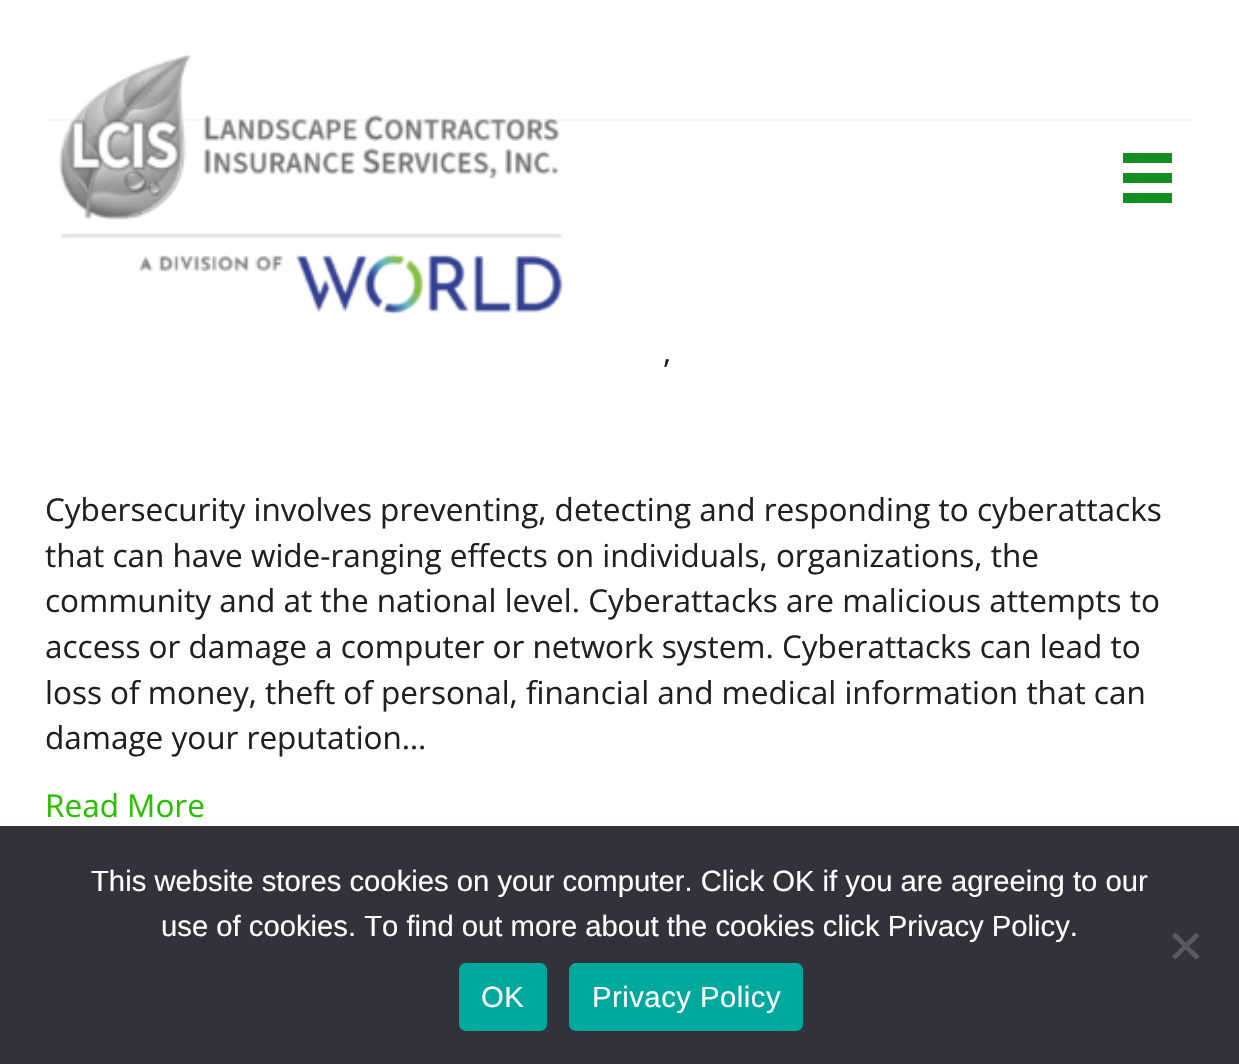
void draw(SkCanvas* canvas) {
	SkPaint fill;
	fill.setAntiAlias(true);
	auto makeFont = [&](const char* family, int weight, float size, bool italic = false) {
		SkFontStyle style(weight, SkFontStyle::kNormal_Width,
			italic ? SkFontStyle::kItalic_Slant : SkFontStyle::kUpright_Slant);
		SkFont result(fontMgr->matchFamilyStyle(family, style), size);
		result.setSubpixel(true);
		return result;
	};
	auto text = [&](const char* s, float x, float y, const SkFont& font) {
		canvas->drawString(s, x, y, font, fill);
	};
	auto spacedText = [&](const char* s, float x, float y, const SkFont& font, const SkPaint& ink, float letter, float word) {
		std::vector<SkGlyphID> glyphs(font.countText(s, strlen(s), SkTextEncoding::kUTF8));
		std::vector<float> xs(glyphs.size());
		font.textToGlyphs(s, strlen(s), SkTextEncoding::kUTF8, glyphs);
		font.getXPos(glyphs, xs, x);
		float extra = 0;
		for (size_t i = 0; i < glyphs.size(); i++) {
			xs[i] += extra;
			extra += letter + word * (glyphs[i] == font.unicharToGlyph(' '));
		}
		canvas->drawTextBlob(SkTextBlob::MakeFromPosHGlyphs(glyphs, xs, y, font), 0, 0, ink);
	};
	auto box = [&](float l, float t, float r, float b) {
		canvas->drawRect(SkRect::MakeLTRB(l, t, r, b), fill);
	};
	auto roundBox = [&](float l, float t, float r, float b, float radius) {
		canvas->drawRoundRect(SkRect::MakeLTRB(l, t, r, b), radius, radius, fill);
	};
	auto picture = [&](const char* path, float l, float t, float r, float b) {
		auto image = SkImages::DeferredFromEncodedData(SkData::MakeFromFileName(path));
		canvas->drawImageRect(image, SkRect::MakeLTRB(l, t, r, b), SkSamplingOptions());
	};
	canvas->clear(0xFFFFFFFF);
	fill.setColor(0xFFE6E6E6);
	box(45, 119, 1195, 121);
	fill.setColor(0xBFFFFFFF);
	box(45, 119, 1195, 121);
	picture("image0.png", 59, 54, 564, 315);
	fill.setColor(0xFF138F21);
	box(1123, 153, 1172, 163);
	box(1123, 173, 1172, 183);
	box(1123, 193, 1172, 203);
	fill.setColor(0xFF32323A);
	box(0, 826, 1239, 1064);
	fill.setColor(0xFF59595D);
	canvas->drawPath(SkPathBuilder().moveTo(1196, 932.5f).lineTo(1199.5f, 936).lineTo(1175.5f, 959.5f).lineTo(1172, 956.5f).close().detach(), fill);
	canvas->drawPath(SkPathBuilder().moveTo(1172, 936).lineTo(1175.5f, 932.5f).lineTo(1199.5f, 956.5f).lineTo(1196, 959.5f).close().detach(), fill);
	fill.setColor(0xFF00A99D);
	roundBox(459, 963, 547, 1031, 7);
	roundBox(569, 963, 803, 1031, 7);
	auto font1 = makeFont("Open Sans", 400, 31.5f);
	fill.setColor(0xFF202020);
	text(",", 663, 363, font1);
	text("Cybersecurity involves preventing, detecting and responding to cyberattacks", 45, 521, font1);
	text("that can have wide-ranging effects on individuals, organizations, the", 45, 567, font1);
	text("community and at the national level. Cyberattacks are malicious attempts to", 45, 612, font1);
	text("access or damage a computer or network system. Cyberattacks can lead to", 45, 658, font1);
	text("loss of money, theft of personal, financial and medical information that can", 45, 704, font1);
	text("damage your reputation…", 45, 749, font1);
	fill.setColor(0xFF2ABF01);
	text("Read More", 45, 817, font1);
	auto font2 = makeFont("Liberation Sans", 400, 29.25f);
	fill.setColor(0xFFFFFFFF);
	text("This website stores cookies on your computer. Click OK if you are agreeing to our", 91, 891, font2);
	text("use of cookies. To find out more about the cookies click Privacy Policy.", 161, 936, font2);
	spacedText("OK", 481, 1007, font2, fill, 0.5f, 0);
	spacedText("Privacy Policy", 592, 1007, font2, fill, 0.5f, 0);
}
